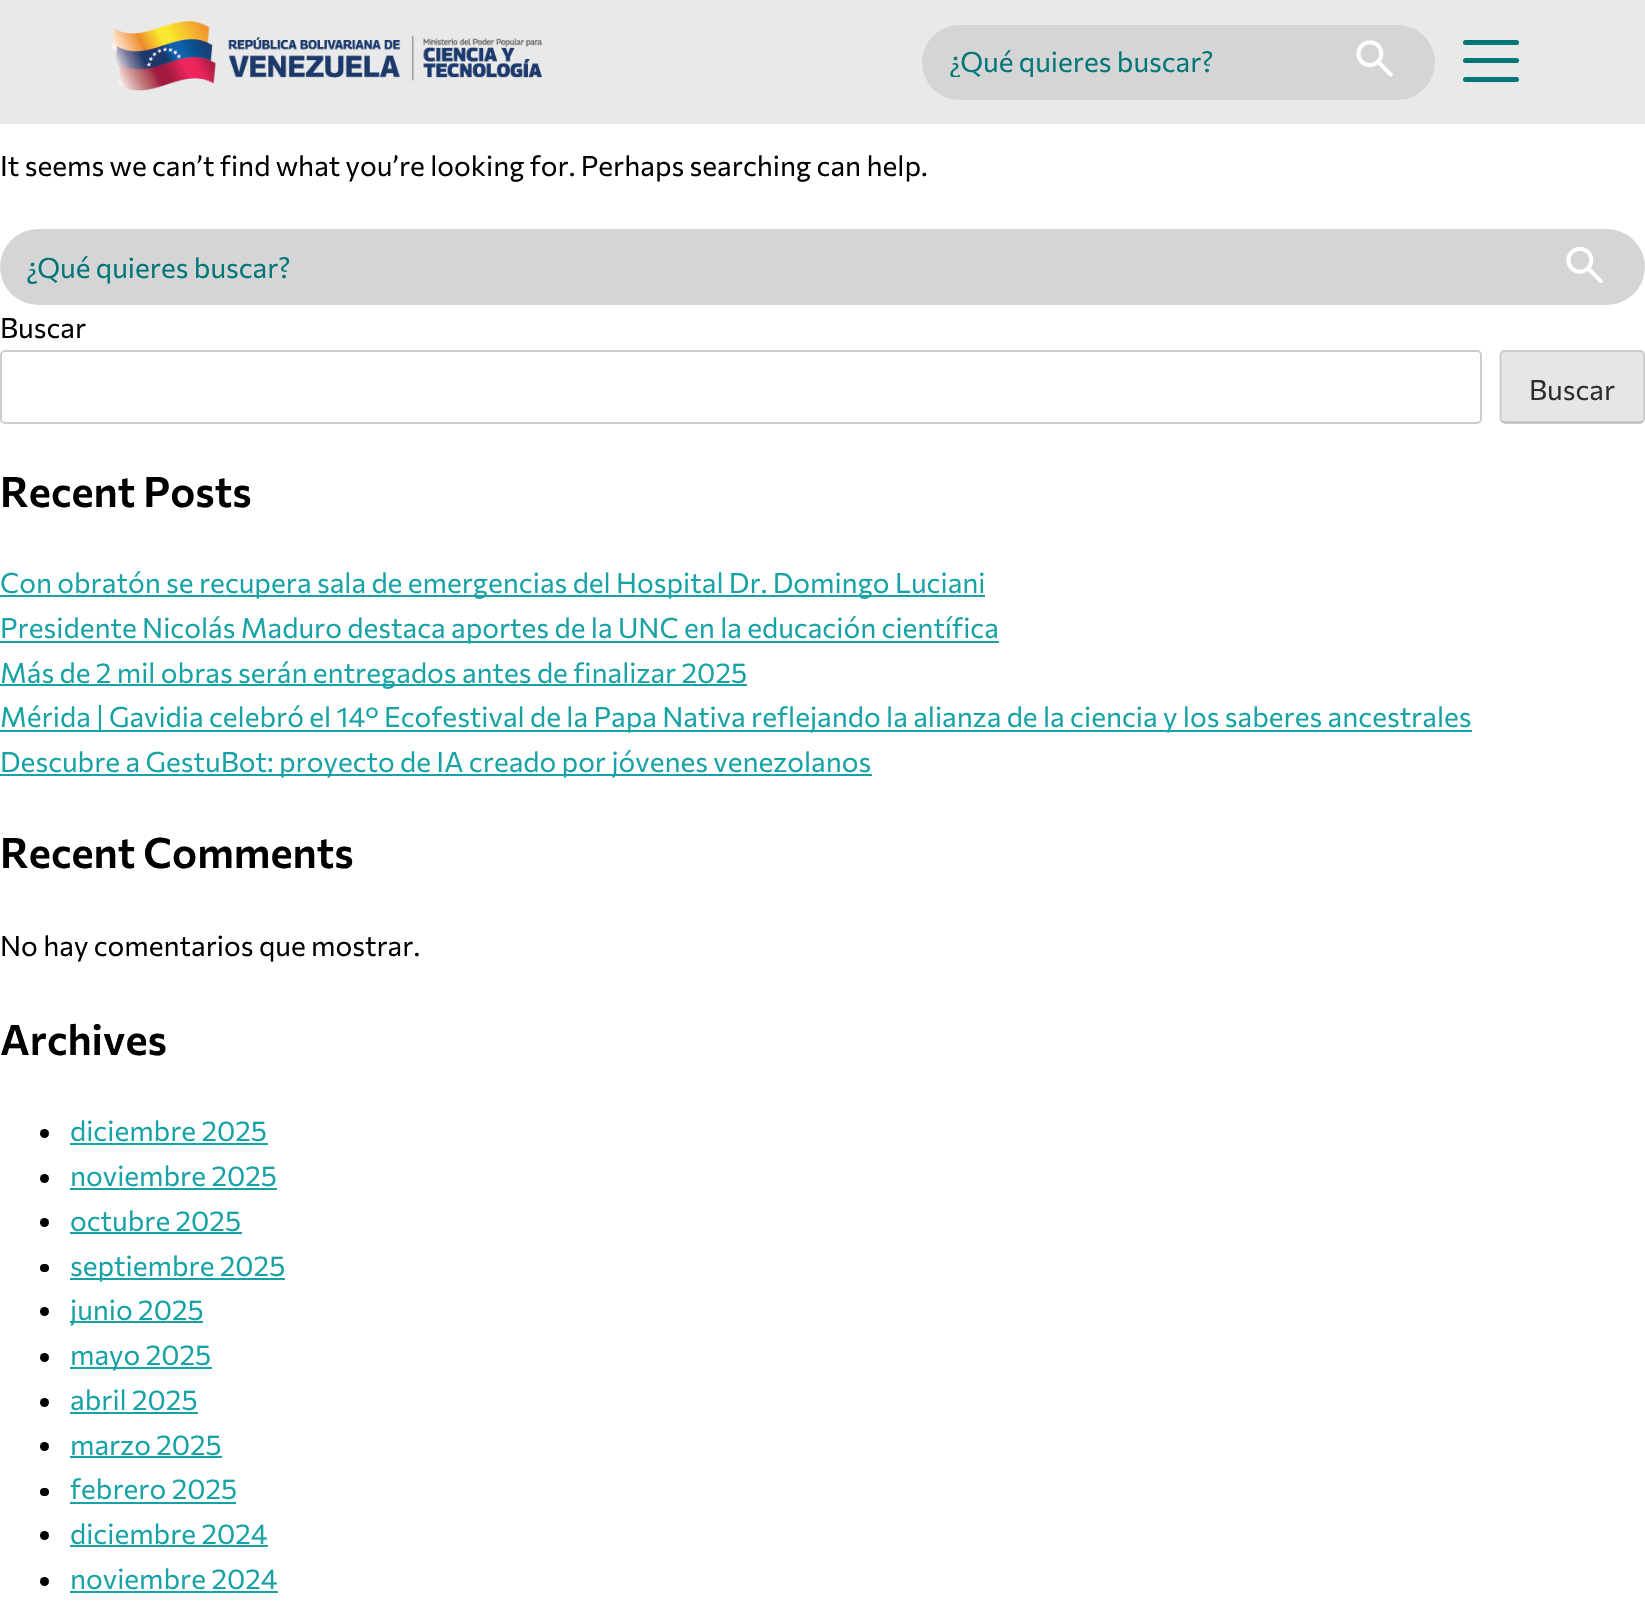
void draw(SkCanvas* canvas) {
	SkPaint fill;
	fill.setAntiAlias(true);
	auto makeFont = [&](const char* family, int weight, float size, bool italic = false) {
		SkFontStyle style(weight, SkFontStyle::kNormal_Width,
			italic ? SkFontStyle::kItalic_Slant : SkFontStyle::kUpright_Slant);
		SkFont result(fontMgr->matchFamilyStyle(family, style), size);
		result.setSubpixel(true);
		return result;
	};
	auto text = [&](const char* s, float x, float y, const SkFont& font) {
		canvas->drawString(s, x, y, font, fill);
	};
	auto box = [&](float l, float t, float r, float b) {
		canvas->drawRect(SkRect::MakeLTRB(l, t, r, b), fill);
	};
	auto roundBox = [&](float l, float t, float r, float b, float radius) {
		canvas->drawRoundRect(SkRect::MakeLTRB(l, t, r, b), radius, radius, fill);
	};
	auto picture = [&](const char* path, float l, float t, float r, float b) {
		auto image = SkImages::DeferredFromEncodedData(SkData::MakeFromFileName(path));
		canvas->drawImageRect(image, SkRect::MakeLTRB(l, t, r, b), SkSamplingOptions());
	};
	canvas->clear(0xFFFFFFFF);
	fill.setColor(0xFFE9E9E9);
	box(0, 0, 1645, 124);
	picture("image0.png", 112, 21, 543, 91);
	fill.setColor(0xFFD5D5D5);
	roundBox(922, 25, 1435, 100, 37.5f);
	picture("image1.png", 1356, 40, 1393, 77);
	fill.setColor(0xFF007679);
	roundBox(1463, 40, 1519, 45, 2.5f);
	roundBox(1463, 58, 1519, 63, 2.5f);
	roundBox(1463, 77, 1519, 82, 2.5f);
	fill.setColor(0xFFD5D5D5);
	roundBox(0, 229, 1645, 305, 38);
	picture("image2.png", 1566, 247, 1603, 283);
	fill.setStyle(SkPaint::kStroke_Style);
	fill.setStrokeWidth(2);
	fill.setColor(0xFFCCCCCC);
	canvas->drawRoundRect(SkRect::MakeLTRB(1, 351, 1481, 423), 4, 4, fill);
	fill.setStyle(SkPaint::kFill_Style);
	fill.setColor(0xFFE6E6E6);
	roundBox(1500, 350, 1645, 424, 5);
	fill.setStyle(SkPaint::kStroke_Style);
	fill.setStrokeWidth(1.8f);
	fill.setColor(0xFFBBBBBB);
	canvas->drawPath(SkPathBuilder().moveTo(1643, 421.5f).lineTo(1640, 422.5f).lineTo(1527.5f, 422.5f).lineTo(1505, 422.5f).lineTo(1502, 421.5f).detach(), fill);
	fill.setColor(0xFFCCCCCC);
	canvas->drawPath(SkPathBuilder().moveTo(1502, 421.5f).cubicTo(1501, 420.5f, 1500.5f, 419.5f, 1500.5f, 418).lineTo(1500.5f, 355).cubicTo(1500.5f, 354, 1501, 353, 1502, 352).cubicTo(1502.5f, 351.5f, 1504, 351, 1505, 351).lineTo(1640, 351).cubicTo(1641, 351, 1642, 351.5f, 1643, 352).cubicTo(1643.5f, 353, 1644, 354, 1644, 355).lineTo(1644, 418).cubicTo(1644, 419.5f, 1643.5f, 420.5f, 1643, 421.5f).detach(), fill);
	fill.setStyle(SkPaint::kFill_Style);
	fill.setColor(0xFF17A2A6);
	box(0, 595, 985, 597);
	box(0, 641, 999, 643);
	box(0, 684, 747, 686);
	box(0, 730, 1472, 732);
	box(0, 774, 872, 776);
	fill.setColor(0xFF000000);
	canvas->drawCircle(44.5f, 1133.5f, 4.5f, fill);
	fill.setColor(0xFF17A2A6);
	box(70, 1143, 268, 1145);
	fill.setColor(0xFF000000);
	canvas->drawCircle(44.5f, 1178.5f, 4.5f, fill);
	fill.setColor(0xFF17A2A6);
	box(70, 1188, 277, 1190);
	fill.setColor(0xFF000000);
	canvas->drawCircle(44.5f, 1222.5f, 4.5f, fill);
	fill.setColor(0xFF17A2A6);
	box(70, 1232, 242, 1234);
	fill.setColor(0xFF000000);
	roundBox(40, 1264, 49, 1272, 4);
	fill.setColor(0xFF17A2A6);
	box(70, 1278, 285, 1280);
	fill.setColor(0xFF000000);
	canvas->drawCircle(44.5f, 1311.5f, 4.5f, fill);
	fill.setColor(0xFF17A2A6);
	box(70, 1321, 203, 1323);
	fill.setColor(0xFF000000);
	canvas->drawCircle(44.5f, 1357.5f, 4.5f, fill);
	fill.setColor(0xFF17A2A6);
	box(70, 1367, 212, 1369);
	fill.setColor(0xFF000000);
	canvas->drawCircle(44.5f, 1402.5f, 4.5f, fill);
	fill.setColor(0xFF17A2A6);
	box(70, 1412, 198, 1414);
	fill.setColor(0xFF000000);
	canvas->drawCircle(44.5f, 1446.5f, 4.5f, fill);
	fill.setColor(0xFF17A2A6);
	box(70, 1456, 222, 1458);
	fill.setColor(0xFF000000);
	roundBox(40, 1488, 49, 1496, 4);
	fill.setColor(0xFF17A2A6);
	box(70, 1502, 236, 1504);
	fill.setColor(0xFF000000);
	canvas->drawCircle(44.5f, 1535.5f, 4.5f, fill);
	fill.setColor(0xFF17A2A6);
	box(70, 1545, 268, 1547);
	fill.setColor(0xFF000000);
	canvas->drawCircle(44.5f, 1581.5f, 4.5f, fill);
	fill.setColor(0xFF17A2A6);
	box(70, 1591, 278, 1593);
	canvas->save();
	canvas->clipRect(SkRect::MakeLTRB(949, 44, 1304, 77));
	auto font1 = makeFont("Commissioner", 400, 28);
	fill.setColor(0xFF007679);
	text("¿Qué quieres buscar?", 949, 72, font1);
	canvas->restore();
	fill.setColor(0xFF000000);
	text("It seems we can’t find what you’re looking for. Perhaps searching can help.", 0, 176, font1);
	fill.setColor(0xFF007679);
	text("¿Qué quieres buscar?", 26, 278, font1);
	fill.setColor(0xFF000000);
	text("Buscar", 0, 338, font1);
	fill.setColor(0xFF2E2E2E);
	text("Buscar", 1529, 400, font1);
	auto font2 = makeFont("Commissioner", 600, 42);
	fill.setColor(0xFF000000);
	text("Recent Posts", 0, 507, font2);
	fill.setColor(0xFF17A2A6);
	text("Con obratón se recupera sala de emergencias del Hospital Dr. Domingo Luciani", 0, 593, font1);
	text("Presidente Nicolás Maduro destaca aportes de la UNC en la educación científica", 0, 638, font1);
	text("Más de 2 mil obras serán entregados antes de finalizar 2025", 0, 683, font1);
	text("Mérida | Gavidia celebró el 14° Ecofestival de la Papa Nativa reflejando la alianza de la ciencia y los saberes ancestrales", 0, 727, font1);
	text("Descubre a GestuBot: proyecto de IA creado por jóvenes venezolanos", 0, 772, font1);
	fill.setColor(0xFF000000);
	text("Recent Comments", 0, 868, font2);
	text("No hay comentarios que mostrar.", 0, 956, font1);
	text("Archives", 0, 1055, font2);
	fill.setColor(0xFF17A2A6);
	text("diciembre 2025", 70, 1141, font1);
	text("noviembre 2025", 70, 1186, font1);
	text("octubre 2025", 70, 1231, font1);
	text("septiembre 2025", 70, 1276, font1);
	text("junio 2025", 70, 1320, font1);
	text("mayo 2025", 70, 1365, font1);
	text("abril 2025", 70, 1410, font1);
	text("marzo 2025", 70, 1455, font1);
	text("febrero 2025", 70, 1499, font1);
	text("diciembre 2024", 70, 1544, font1);
	text("noviembre 2024", 70, 1589, font1);
}
